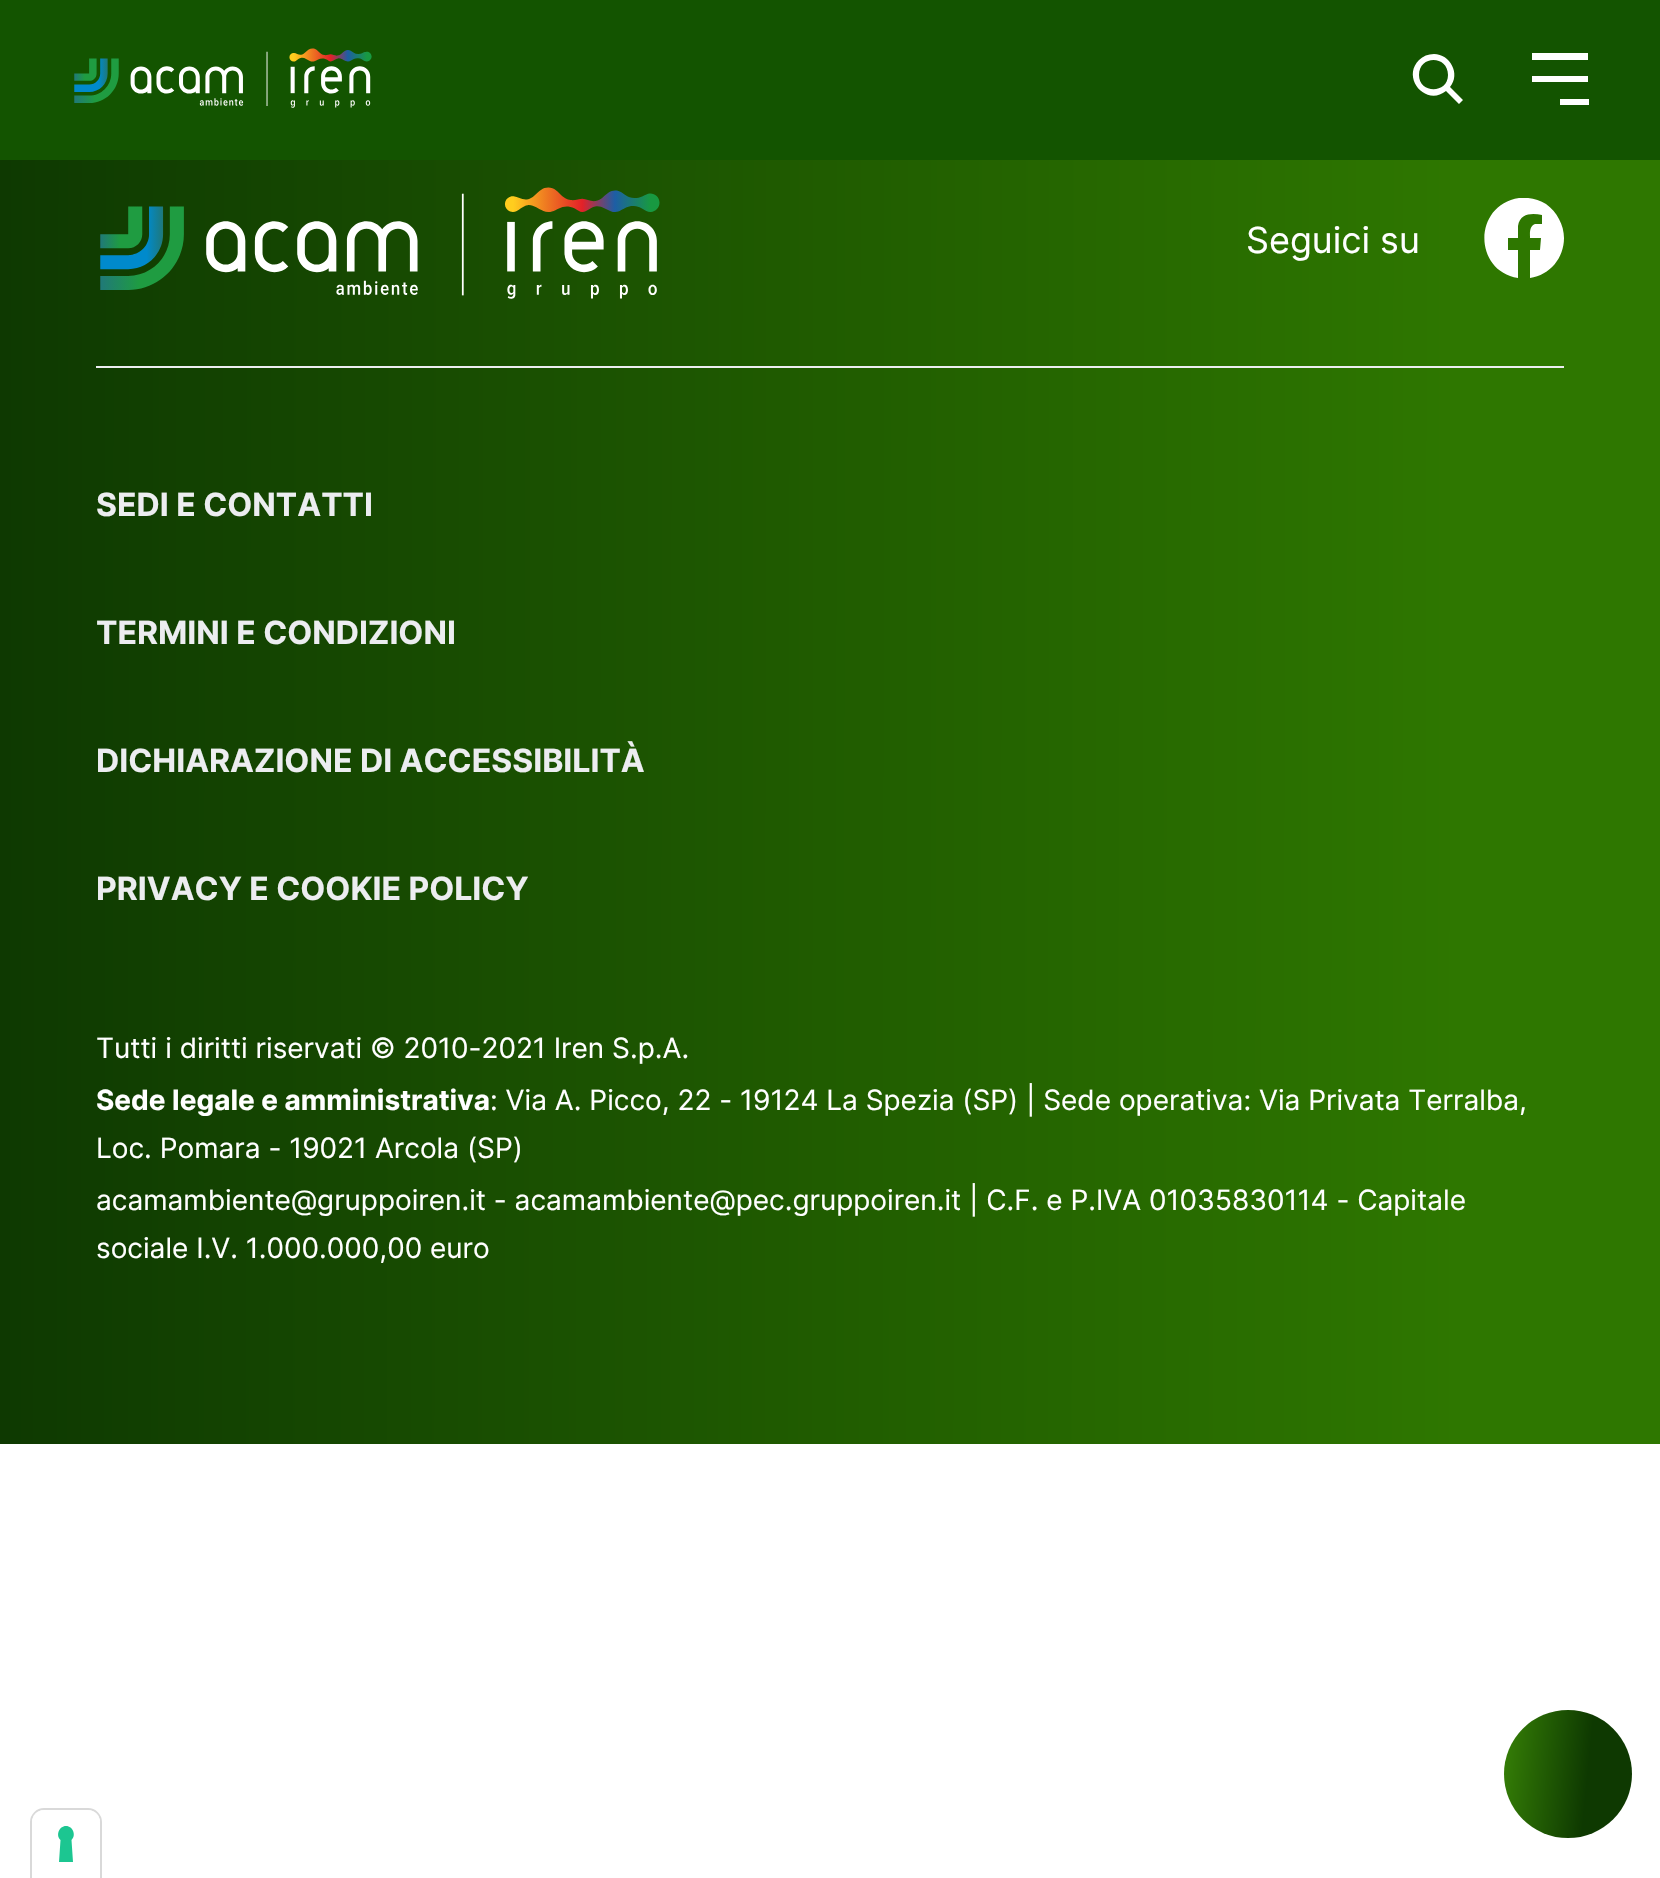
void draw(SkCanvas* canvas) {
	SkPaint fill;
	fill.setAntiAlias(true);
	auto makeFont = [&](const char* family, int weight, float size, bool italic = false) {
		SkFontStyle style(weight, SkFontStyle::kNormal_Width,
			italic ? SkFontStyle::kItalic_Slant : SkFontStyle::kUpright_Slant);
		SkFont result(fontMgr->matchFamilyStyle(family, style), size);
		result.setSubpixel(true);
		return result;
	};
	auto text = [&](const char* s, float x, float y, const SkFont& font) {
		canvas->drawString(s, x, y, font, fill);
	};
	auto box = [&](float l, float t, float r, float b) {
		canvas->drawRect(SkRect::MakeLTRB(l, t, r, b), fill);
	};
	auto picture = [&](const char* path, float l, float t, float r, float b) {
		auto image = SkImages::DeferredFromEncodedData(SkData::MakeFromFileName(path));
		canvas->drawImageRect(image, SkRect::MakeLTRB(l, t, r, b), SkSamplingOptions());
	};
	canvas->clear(0xFFFFFFFF);
	fill.setColor(0xFF135400);
	box(0, 0, 1660, 160);
	picture("image0.png", 74, 48, 372, 108);
	fill.setColor(0xFFFFFFFF);
	canvas->drawPath(SkPathBuilder().moveTo(1448, 75).cubicTo(1448, 55, 1419, 55, 1419, 75).cubicTo(1419, 94, 1448, 94, 1448, 75).close().moveTo(1434, 54).cubicTo(1450, 54, 1461, 74, 1450, 87).lineTo(1463, 100).lineTo(1459, 104).lineTo(1446, 91).cubicTo(1426, 107, 1401, 78, 1419, 60).cubicTo(1423, 56, 1428, 54, 1434, 54).close().detach(), fill);
	canvas->drawPath(SkPathBuilder().moveTo(1560, 99).lineTo(1589, 99).lineTo(1589, 105).lineTo(1560, 105).close().moveTo(1532, 76).lineTo(1588, 76).lineTo(1588, 82).lineTo(1532, 82).close().moveTo(1532, 53).lineTo(1588, 53).lineTo(1588, 60).lineTo(1532, 60).close().detach(), fill);
	{
		const SkColor colors[] = {0xFF0E3901, 0xFF2E7700};
		const float stops[] = {0, 0.88f};
		const SkPoint ends[] = {{-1.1f, 721}, {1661, 723}};
		fill.setShader(SkGradientShader::MakeLinear(ends, colors, stops, 2, SkTileMode::kClamp));
		fill.setAlpha(255);
	}
	box(0, 160, 1660, 1444);
	fill.setShader(nullptr);
	fill.setColor(0xFFECEDF0);
	box(96, 366, 1564, 368);
	picture("image1.png", 100, 187, 660, 299);
	canvas->save();
	canvas->clipRect(SkRect::MakeLTRB(1484, 198, 1564, 278));
	fill.setColor(0xFFFFFFFF);
	canvas->drawPath(SkPathBuilder().moveTo(1564, 238).cubicTo(1564, 225, 1557, 212, 1546, 204).cubicTo(1538, 199, 1528, 197, 1519, 198).cubicTo(1473, 205, 1473, 271, 1518, 278).lineTo(1518, 250).lineTo(1508, 250).lineTo(1508, 238).lineTo(1518, 238).lineTo(1518, 226).cubicTo(1520, 213, 1532, 213, 1542, 215).lineTo(1542, 224).lineTo(1535, 224).cubicTo(1529, 226, 1530, 234, 1530, 238).lineTo(1541, 238).lineTo(1540, 250).lineTo(1530, 250).lineTo(1530, 278).cubicTo(1550, 275, 1564, 258, 1564, 238).close().detach(), fill);
	canvas->restore();
	{
		const SkColor colors[] = {0xFF337B06, 0xFF0E3901};
		const float stops[] = {0.05f, 0.64f};
		const SkPoint ends[] = {{1498, 1767}, {1638, 1781}};
		fill.setShader(SkGradientShader::MakeLinear(ends, colors, stops, 2, SkTileMode::kClamp));
		fill.setAlpha(255);
	}
	canvas->drawCircle(1568, 1774, 64, fill);
	fill.setStyle(SkPaint::kStroke_Style);
	fill.setStrokeWidth(2);
	fill.setShader(nullptr);
	fill.setColor(0xFFD9D9D9);
	canvas->drawPath(SkPathBuilder().moveTo(44, 1809).lineTo(88, 1809).cubicTo(95, 1809, 101, 1815, 101, 1822).lineTo(101, 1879).lineTo(31, 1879).lineTo(31, 1822).cubicTo(31, 1815, 37, 1809, 44, 1809).close().detach(), fill);
	fill.setStyle(SkPaint::kFill_Style);
	fill.setColor(0xFFFFFFFF);
	canvas->drawPath(SkPathBuilder().moveTo(44, 1810).lineTo(88, 1810).cubicTo(94.5f, 1810, 100, 1815.5f, 100, 1822).lineTo(100, 1878).lineTo(32, 1878).lineTo(32, 1822).cubicTo(32, 1815.5f, 37.5f, 1810, 44, 1810).close().detach(), fill);
	fill.setColor(0xFF1CC691);
	canvas->drawPath(SkPathBuilder(SkPathFillType::kEvenOdd).moveTo(66, 1826).cubicTo(73, 1826, 76.5f, 1835.5f, 71.5f, 1840).lineTo(73, 1862).lineTo(59, 1862).lineTo(60.5f, 1840).cubicTo(55.5f, 1835.5f, 59, 1826, 66, 1826).close().detach(), fill);
	auto font1 = makeFont("Inter", 400, 36);
	fill.setColor(0xFFFFFFFF);
	text("Seguici su", 1246, 253, font1);
	auto font2 = makeFont("Inter", 700, 32);
	fill.setColor(0xFFECEDF0);
	text("SEDI E CONTATTI", 96, 516, font2);
	text("TERMINI E CONDIZIONI", 96, 644, font2);
	text("DICHIARAZIONE DI ACCESSIBILITÀ", 96, 772, font2);
	text("PRIVACY E COOKIE POLICY", 96, 900, font2);
	auto font3 = makeFont("Inter", 400, 28);
	fill.setColor(0xFFFFFFFF);
	text("Tutti i diritti riservati © 2010-2021 Iren S.p.A.", 96, 1058, font3);
	auto font4 = makeFont("Inter", 700, 28);
	text("Sede legale e amministrativa", 96, 1110, font4);
	text(": Via A. Picco, 22 - 19124 La Spezia (SP) | Sede operativa: Via Privata Terralba,", 490, 1110, font3);
	text("Loc. Pomara - 19021 Arcola (SP)", 96, 1158, font3);
	text("acamambiente@gruppoiren.it - acamambiente@pec.gruppoiren.it | C.F. e P.IVA 01035830114 - Capitale", 96, 1210, font3);
	text("sociale I.V. 1.000.000,00 euro", 96, 1258, font3);
}
